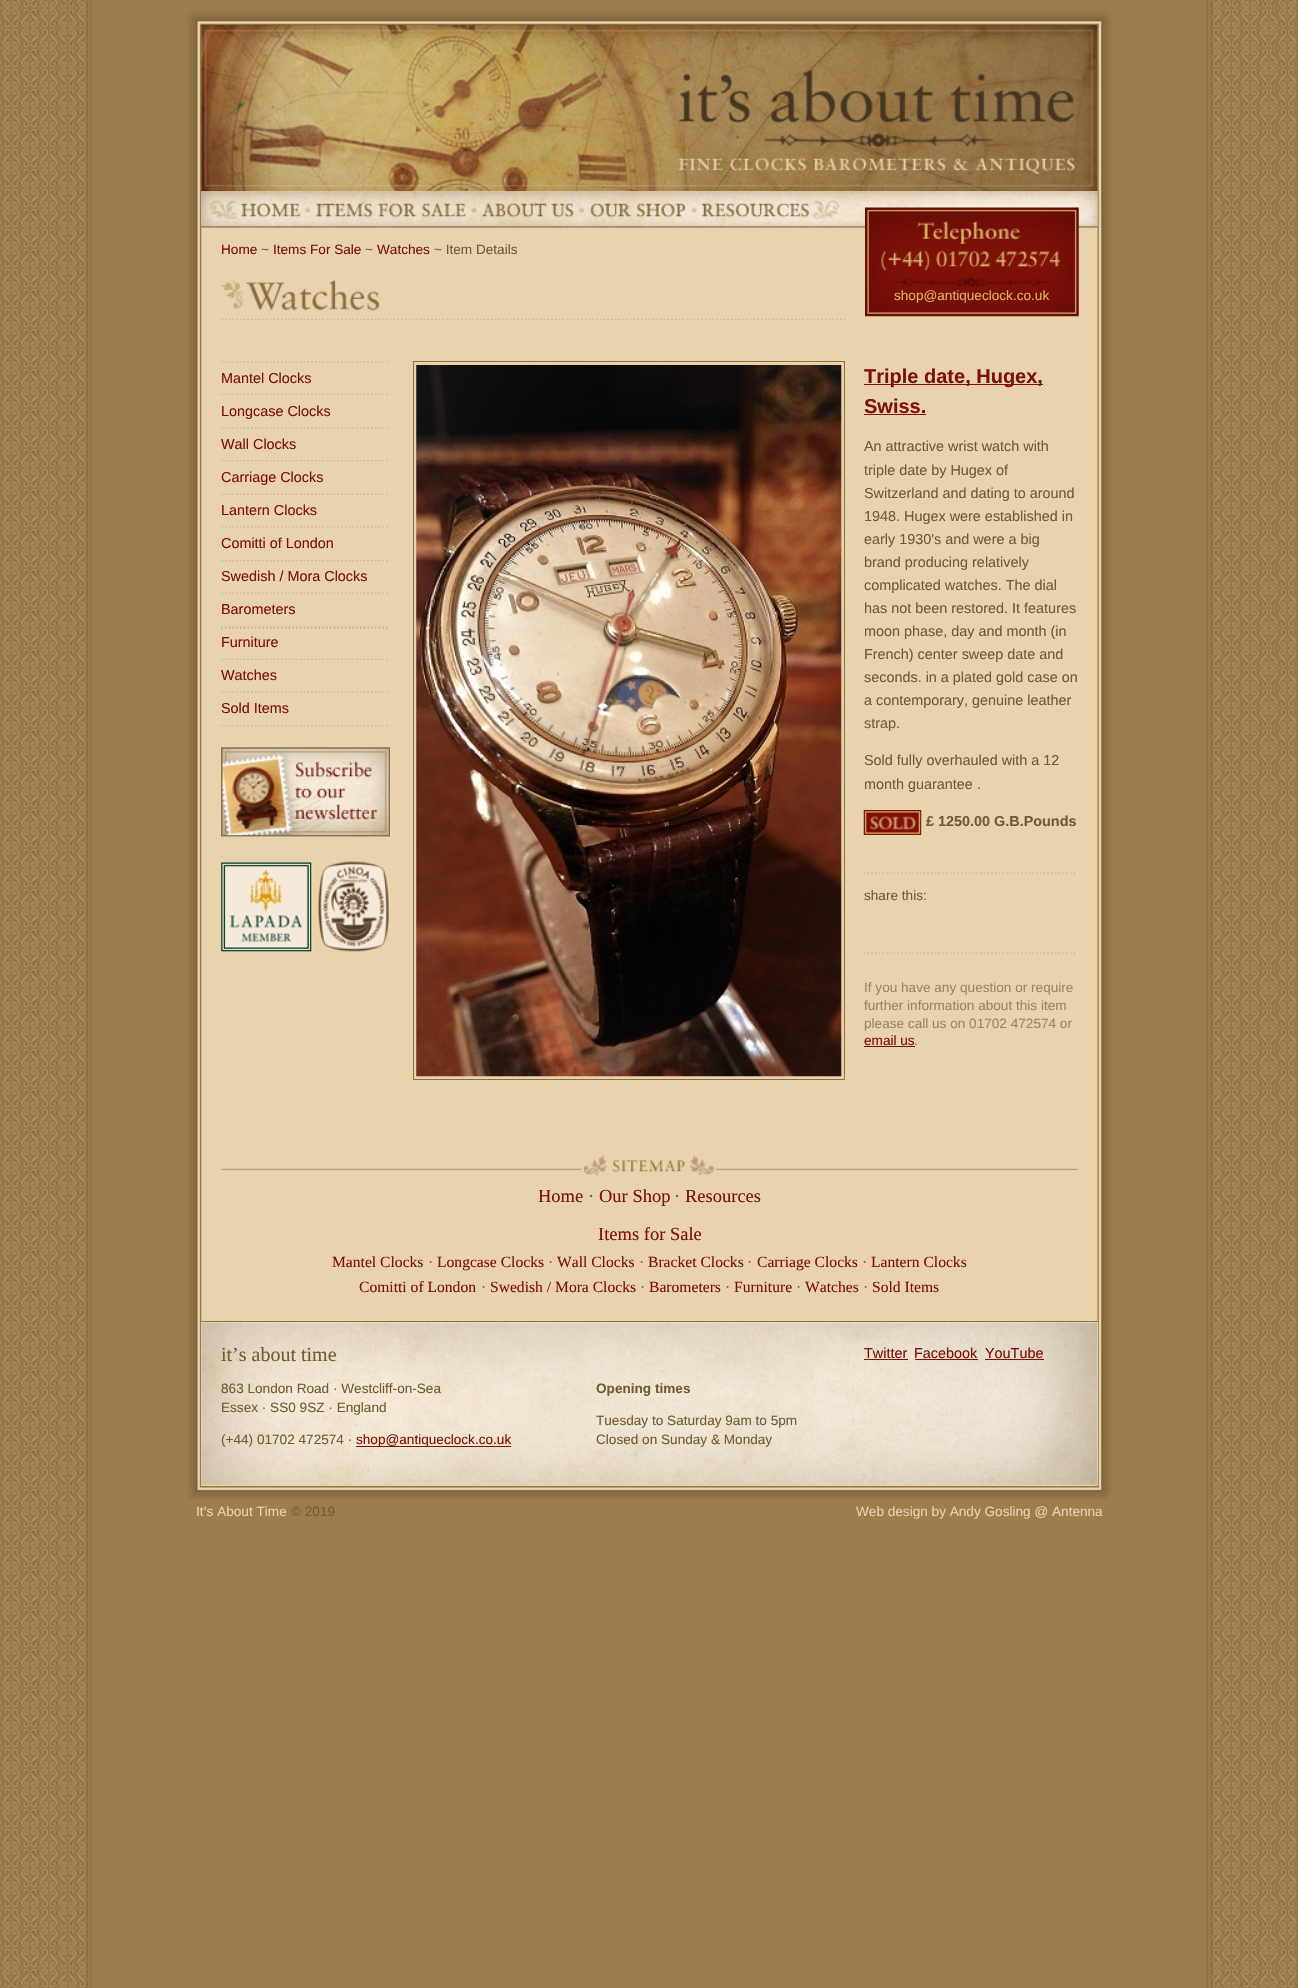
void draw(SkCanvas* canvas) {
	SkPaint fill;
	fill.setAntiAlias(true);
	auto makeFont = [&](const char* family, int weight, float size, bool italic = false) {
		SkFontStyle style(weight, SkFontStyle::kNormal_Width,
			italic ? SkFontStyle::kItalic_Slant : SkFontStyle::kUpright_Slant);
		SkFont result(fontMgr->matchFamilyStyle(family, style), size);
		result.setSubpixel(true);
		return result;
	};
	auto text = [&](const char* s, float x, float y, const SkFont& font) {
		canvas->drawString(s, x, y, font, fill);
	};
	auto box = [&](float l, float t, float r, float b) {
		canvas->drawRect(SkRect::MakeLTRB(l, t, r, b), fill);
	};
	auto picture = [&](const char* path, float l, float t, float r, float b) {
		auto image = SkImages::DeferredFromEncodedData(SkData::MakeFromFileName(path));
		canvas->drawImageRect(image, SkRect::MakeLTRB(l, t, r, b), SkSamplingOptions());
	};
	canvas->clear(0xFFFFFFFF);
	picture("image0.png", 0, 0, 1298, 1988);
	picture("image1.png", 184, 25, 1115, 1487);
	picture("image2.png", 184, 0, 1115, 25);
	picture("image3.png", 201, 25, 1098, 192);
	picture("image4.png", 201, 191, 1098, 228);
	picture("image5.png", 241, 203, 301, 218);
	picture("image6.png", 316, 202, 467, 218);
	picture("image7.png", 481, 202, 574, 218);
	picture("image8.png", 590, 203, 686, 218);
	picture("image9.png", 701, 203, 809, 218);
	picture("image10.png", 221, 280, 846, 321);
	picture("image11.png", 865, 207, 1079, 317);
	picture("image12.png", 221, 361, 388, 363);
	picture("image13.png", 221, 393, 388, 395);
	picture("image14.png", 221, 427, 388, 429);
	picture("image15.png", 221, 460, 388, 462);
	picture("image13.png", 221, 493, 388, 495);
	picture("image12.png", 221, 526, 388, 528);
	picture("image15.png", 221, 560, 388, 562);
	picture("image14.png", 221, 592, 388, 594);
	picture("image16.png", 221, 626, 388, 629);
	picture("image13.png", 221, 658, 388, 660);
	picture("image12.png", 221, 691, 388, 693);
	picture("image15.png", 221, 725, 388, 727);
	picture("image17.png", 221, 747, 390, 837);
	picture("image18.png", 221, 747, 390, 837);
	picture("image19.png", 221, 861, 390, 953);
	fill.setStyle(SkPaint::kStroke_Style);
	fill.setStrokeWidth(1);
	fill.setColor(0xFF89703C);
	canvas->drawRect(SkRect::MakeLTRB(413.5f, 361.5f, 844.5f, 1079.5f), fill);
	picture("image20.png", 416, 365, 842, 1077);
	fill.setStyle(SkPaint::kFill_Style);
	fill.setColor(0xFF7E1008);
	box(864, 384, 1043, 385);
	box(864, 414, 926, 415);
	picture("image21.png", 863, 810, 922, 835);
	picture("image22.png", 863, 952, 1076, 954);
	picture("image22.png", 863, 872, 1076, 874);
	box(864, 1046, 915, 1047);
	picture("image23.png", 221, 1155, 1078, 1175);
	fill.setColor(0xFFF0E8D9);
	box(201, 1322, 1098, 1485);
	picture("image24.png", 201, 1322, 1098, 1485);
	fill.setColor(0xFF89703C);
	box(201, 1321, 1098, 1322);
	fill.setColor(0xFF7E1008);
	box(864, 1359, 908, 1360);
	box(915, 1359, 978, 1360);
	box(985, 1359, 1044, 1360);
	box(356, 1446, 511, 1447);
	picture("image25.png", 187, 1486, 1111, 1500);
	auto font1 = makeFont("Liberation Sans", 400, 13.6f);
	text("Home", 221, 254, font1);
	fill.setColor(0xFF745A32);
	text("~", 261, 254, font1);
	fill.setColor(0xFF7E1008);
	text("Items For Sale", 273, 254, font1);
	fill.setColor(0xFF745A32);
	text("~", 365, 254, font1);
	fill.setColor(0xFF7E1008);
	text("Watches", 377, 254, font1);
	fill.setColor(0xFF745A32);
	text("~ Item Details", 434, 254, font1);
	fill.setColor(0xFFDAB067);
	text("shop@antiqueclock.co.uk", 894, 300, font1);
	auto font2 = makeFont("Liberation Sans", 400, 14.4f);
	fill.setColor(0xFF7E1008);
	text("Mantel Clocks", 221, 383, font2);
	text("Longcase Clocks", 221, 416, font2);
	text("Wall Clocks", 221, 449, font2);
	text("Carriage Clocks", 221, 482, font2);
	text("Lantern Clocks", 221, 515, font2);
	text("Comitti of London", 221, 548, font2);
	text("Swedish / Mora Clocks", 221, 581, font2);
	text("Barometers", 221, 614, font2);
	text("Furniture", 221, 647, font2);
	text("Watches", 221, 680, font2);
	text("Sold Items", 221, 713, font2);
	auto font3 = makeFont("Liberation Sans", 700, 20);
	text("Triple date, Hugex,", 864, 383, font3);
	text("Swiss.", 864, 413, font3);
	fill.setColor(0xFF745A32);
	text("An attractive wrist watch with", 864, 451, font2);
	text("triple date by Hugex of", 864, 475, font2);
	text("Switzerland and dating to around", 864, 498, font2);
	text("1948. Hugex were established in", 864, 521, font2);
	text("early 1930's and were a big", 864, 544, font2);
	text("brand producing relatively", 864, 567, font2);
	text("complicated watches. The dial", 864, 590, font2);
	text("has not been restored. It features", 864, 613, font2);
	text("moon phase, day and month (in", 864, 636, font2);
	text("French) center sweep date and", 864, 659, font2);
	text("seconds. in a plated gold case on", 864, 682, font2);
	text("a contemporary, genuine leather", 864, 705, font2);
	text("strap.", 864, 728, font2);
	text("Sold fully overhauled with a 12", 864, 765, font2);
	text("month guarantee .", 864, 789, font2);
	auto font4 = makeFont("Liberation Sans", 700, 14.4f);
	text("£ 1250.00 G.B.Pounds", 926, 826, font4);
	text("share this:", 864, 900, font1);
	fill.setColor(0xFF99866A);
	text("If you have any question or require", 864, 992, font1);
	text("further information about this item", 864, 1010, font1);
	text("please call us on 01702 472574 or", 864, 1028, font1);
	fill.setColor(0xFF7E1008);
	text("email us", 864, 1045, font1);
	fill.setColor(0xFF99866A);
	text(".", 914, 1045, font1);
	auto font5 = makeFont("Liberation Serif", 400, 18.5f);
	fill.setColor(0xFF7E1008);
	text("Home", 538, 1202, font5);
	fill.setColor(0xFF745A32);
	text("·", 588, 1202, font5);
	fill.setColor(0xFF7E1008);
	text("Our Shop", 599, 1202, font5);
	fill.setColor(0xFF745A32);
	text("·", 674, 1202, font5);
	fill.setColor(0xFF7E1008);
	text("Resources", 685, 1202, font5);
	text("Items for Sale", 598, 1240, font5);
	auto font6 = makeFont("Liberation Serif", 400, 15.6f);
	text("Mantel Clocks", 332, 1267, font6);
	fill.setColor(0xFF745A32);
	text("·", 428, 1267, font6);
	fill.setColor(0xFF7E1008);
	text("Longcase Clocks", 437, 1267, font6);
	fill.setColor(0xFF745A32);
	text("·", 548, 1267, font6);
	fill.setColor(0xFF7E1008);
	text("Wall Clocks", 557, 1267, font6);
	fill.setColor(0xFF745A32);
	text("·", 639, 1267, font6);
	fill.setColor(0xFF7E1008);
	text("Bracket Clocks", 648, 1267, font6);
	fill.setColor(0xFF745A32);
	text("·", 747, 1267, font6);
	fill.setColor(0xFF7E1008);
	text("Carriage Clocks", 757, 1267, font6);
	fill.setColor(0xFF745A32);
	text("·", 862, 1267, font6);
	fill.setColor(0xFF7E1008);
	text("Lantern Clocks", 871, 1267, font6);
	text("Comitti of London", 359, 1292, font6);
	fill.setColor(0xFF745A32);
	text("·", 481, 1292, font6);
	fill.setColor(0xFF7E1008);
	text("Swedish / Mora Clocks", 490, 1292, font6);
	fill.setColor(0xFF745A32);
	text("·", 640, 1292, font6);
	fill.setColor(0xFF7E1008);
	text("Barometers", 649, 1292, font6);
	fill.setColor(0xFF745A32);
	text("·", 725, 1292, font6);
	fill.setColor(0xFF7E1008);
	text("Furniture", 734, 1292, font6);
	fill.setColor(0xFF745A32);
	text("·", 796, 1292, font6);
	fill.setColor(0xFF7E1008);
	text("Watches", 805, 1292, font6);
	fill.setColor(0xFF745A32);
	text("·", 863, 1292, font6);
	fill.setColor(0xFF7E1008);
	text("Sold Items", 872, 1292, font6);
	auto font7 = makeFont("Liberation Serif", 400, 20);
	fill.setColor(0xFF745A32);
	text("it’s about time", 221, 1361, font7);
	fill.setColor(0xFF7E1008);
	text("Twitter", 864, 1358, font2);
	text("Facebook", 914, 1358, font2);
	text("YouTube", 985, 1358, font2);
	fill.setColor(0xFF745A32);
	text("863 London Road · Westcliff-on-Sea", 221, 1393, font1);
	text("Essex · SS0 9SZ · England", 221, 1412, font1);
	text("(+44) 01702 472574 ·", 221, 1444, font1);
	fill.setColor(0xFF7E1008);
	text("shop@antiqueclock.co.uk", 356, 1444, font1);
	auto font8 = makeFont("Liberation Sans", 700, 13.6f);
	fill.setColor(0xFF745A32);
	text("Opening times", 596, 1393, font8);
	text("Tuesday to Saturday 9am to 5pm", 596, 1425, font1);
	text("Closed on Sunday & Monday", 596, 1444, font1);
	fill.setColor(0xFFE9D3AD);
	text("It’s About Time", 196, 1516, font1);
	fill.setColor(0xFF745A32);
	text("© 2019", 291, 1516, font1);
	fill.setColor(0xFFE9D3AD);
	text("Web design by Andy Gosling @ Antenna", 856, 1516, font1);
}
